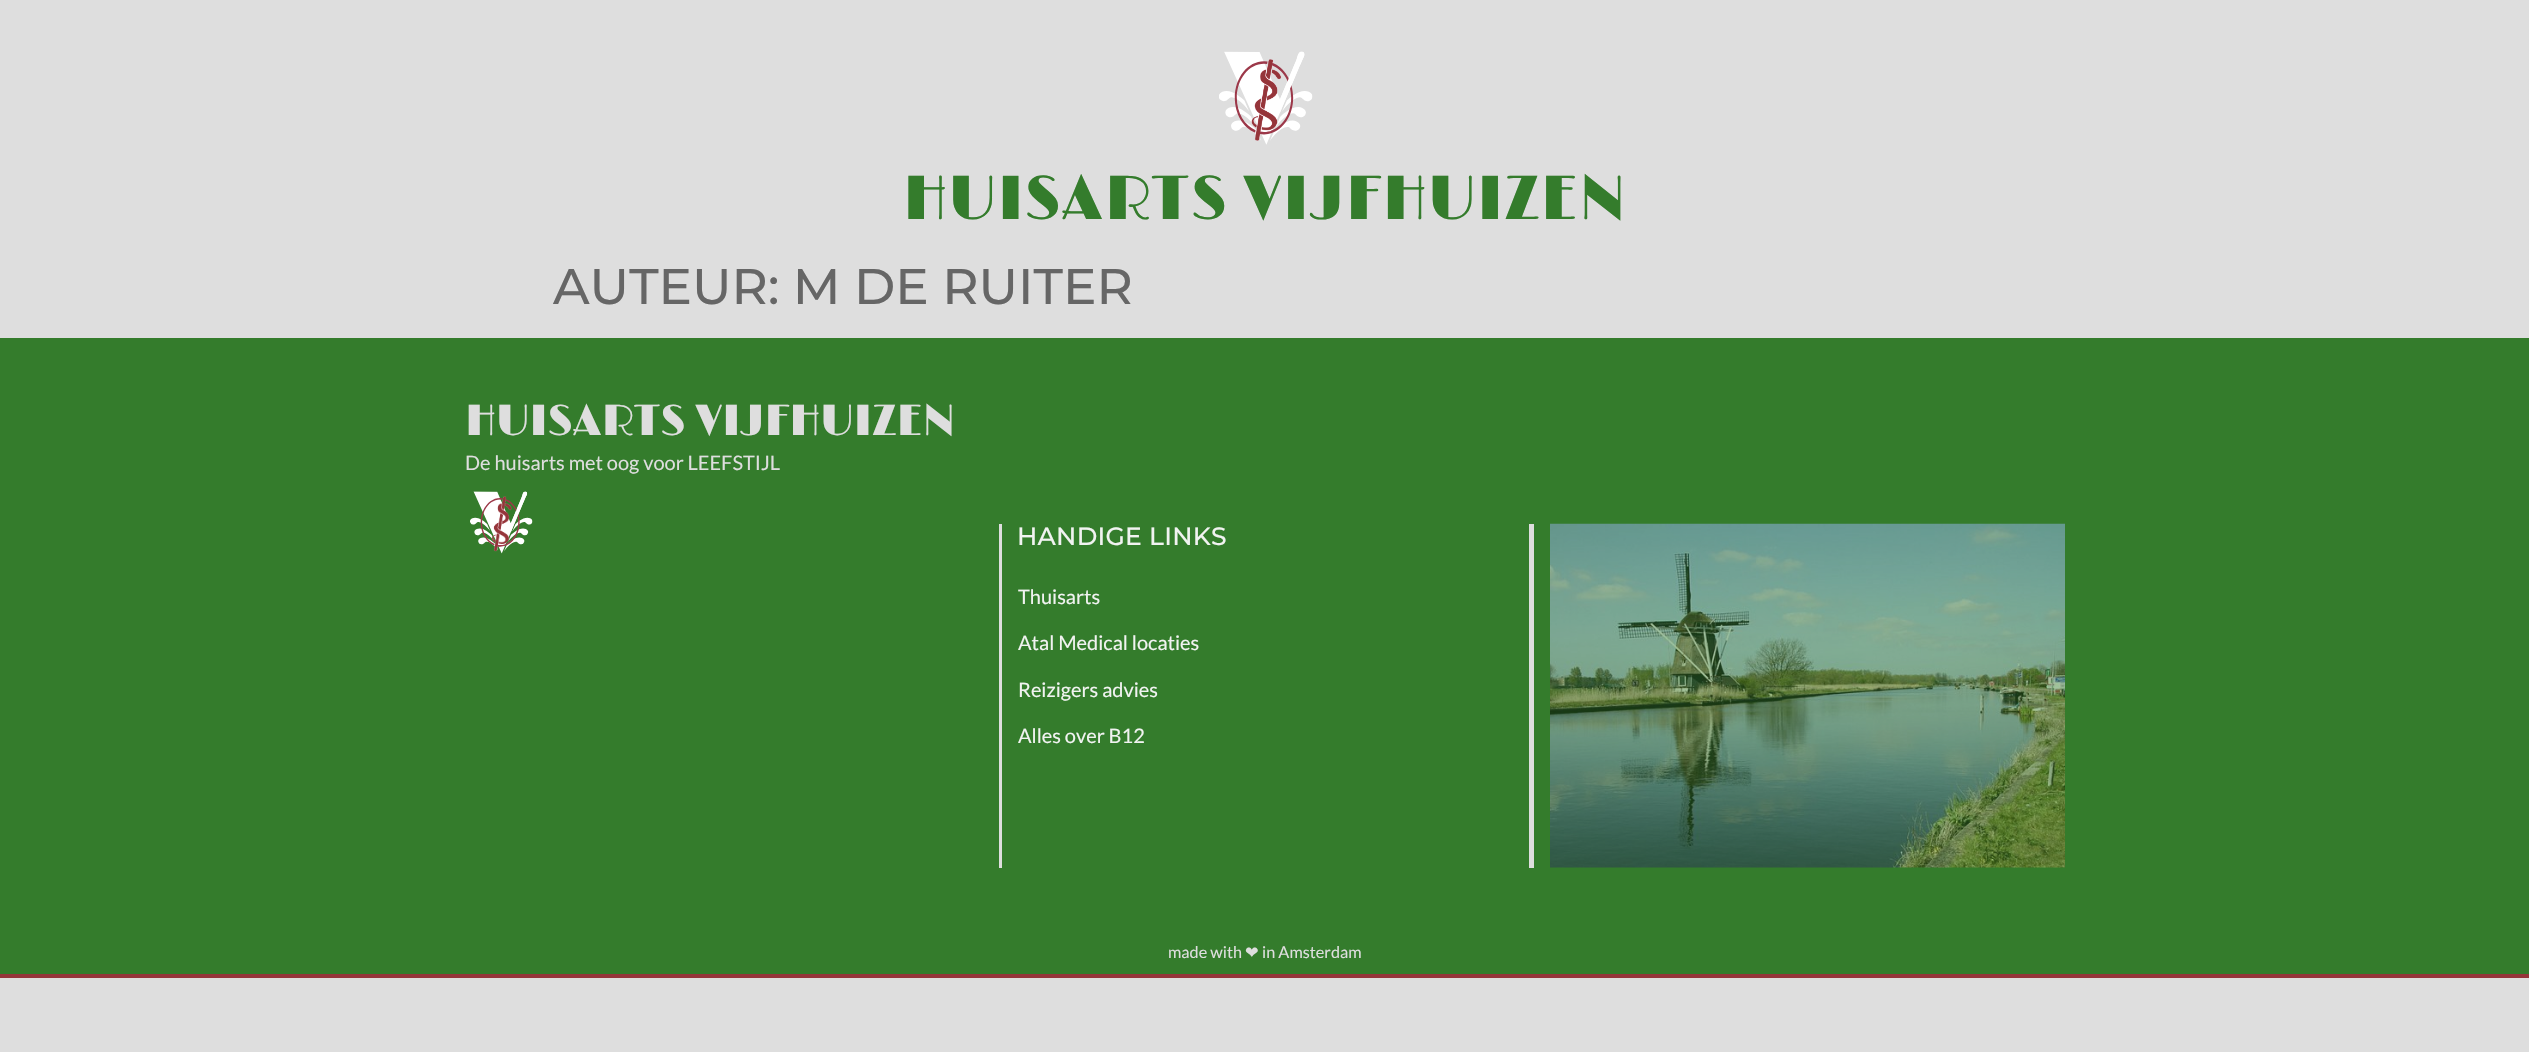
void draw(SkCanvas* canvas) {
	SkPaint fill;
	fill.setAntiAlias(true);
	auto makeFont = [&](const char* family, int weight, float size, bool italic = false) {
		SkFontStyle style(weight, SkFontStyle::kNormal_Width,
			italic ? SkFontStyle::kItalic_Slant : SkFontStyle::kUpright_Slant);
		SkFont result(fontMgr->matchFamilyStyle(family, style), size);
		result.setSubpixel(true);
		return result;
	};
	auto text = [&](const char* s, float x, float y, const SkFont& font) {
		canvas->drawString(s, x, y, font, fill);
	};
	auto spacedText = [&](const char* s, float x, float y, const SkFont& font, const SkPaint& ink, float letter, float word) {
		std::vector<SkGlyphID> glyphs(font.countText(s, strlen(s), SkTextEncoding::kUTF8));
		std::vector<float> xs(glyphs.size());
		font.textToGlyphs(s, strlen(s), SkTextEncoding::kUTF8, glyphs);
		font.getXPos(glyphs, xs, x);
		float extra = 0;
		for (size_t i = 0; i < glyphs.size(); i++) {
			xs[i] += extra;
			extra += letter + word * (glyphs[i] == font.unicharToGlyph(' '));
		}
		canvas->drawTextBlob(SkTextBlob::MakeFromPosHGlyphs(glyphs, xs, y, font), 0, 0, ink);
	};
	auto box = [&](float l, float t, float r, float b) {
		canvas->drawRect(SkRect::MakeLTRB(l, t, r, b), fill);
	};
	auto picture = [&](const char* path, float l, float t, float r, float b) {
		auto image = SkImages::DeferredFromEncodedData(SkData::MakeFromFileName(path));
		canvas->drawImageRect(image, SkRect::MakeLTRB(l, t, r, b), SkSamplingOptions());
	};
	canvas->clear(0xFFDEDEDE);
	picture("image0.png", 1219, 51, 1313, 145);
	fill.setColor(0xFF347C2C);
	box(0, 338, 2529, 974);
	picture("image1.png", 470, 491, 533, 554);
	fill.setColor(0xFFDEDEDE);
	box(1529, 524, 1534, 868);
	box(999, 524, 1002, 868);
	picture("image2.png", 1550, 523, 2065, 868);
	fill.setColor(0xFF95353A);
	box(0, 974, 2529, 978);
	auto font1 = makeFont("Limelight", 300, 62.5f);
	fill.setColor(0xFF347C2C);
	spacedText("HUISARTS VIJFHUIZEN", 903, 219, font1, fill, 1.25f, 0);
	auto font2 = makeFont("Montserrat", 500, 50);
	fill.setColor(0xFF666666);
	text("AUTEUR: M DE RUITER", 553, 304, font2);
	auto font3 = makeFont("Limelight", 300, 43.75f);
	fill.setColor(0xFFDEDEDE);
	text("HUISARTS VIJFHUIZEN", 465, 435, font3);
	auto font4 = makeFont("Lato", 400, 20);
	text("De huisarts met oog voor LEEFSTIJL", 465, 470, font4);
	auto font5 = makeFont("Montserrat", 500, 25);
	fill.setColor(0xFFF1F3F1);
	spacedText("HANDIGE LINKS", 1017, 545, font5, fill, 0.25f, 0);
	text("Thuisarts", 1018, 604, font4);
	text("Atal Medical locaties", 1018, 650, font4);
	text("Reizigers advies", 1018, 697, font4);
	text("Alles over B12", 1018, 743, font4);
	auto font6 = makeFont("Lato", 400, 16.25f);
	fill.setColor(0xFFDEDEDE);
	text("made with", 1168, 958, font6);
	auto font7 = makeFont("DejaVu Sans", 400, 16.25f);
	text("❤", 1245, 958, font7);
	text("in Amsterdam", 1262, 958, font6);
}
